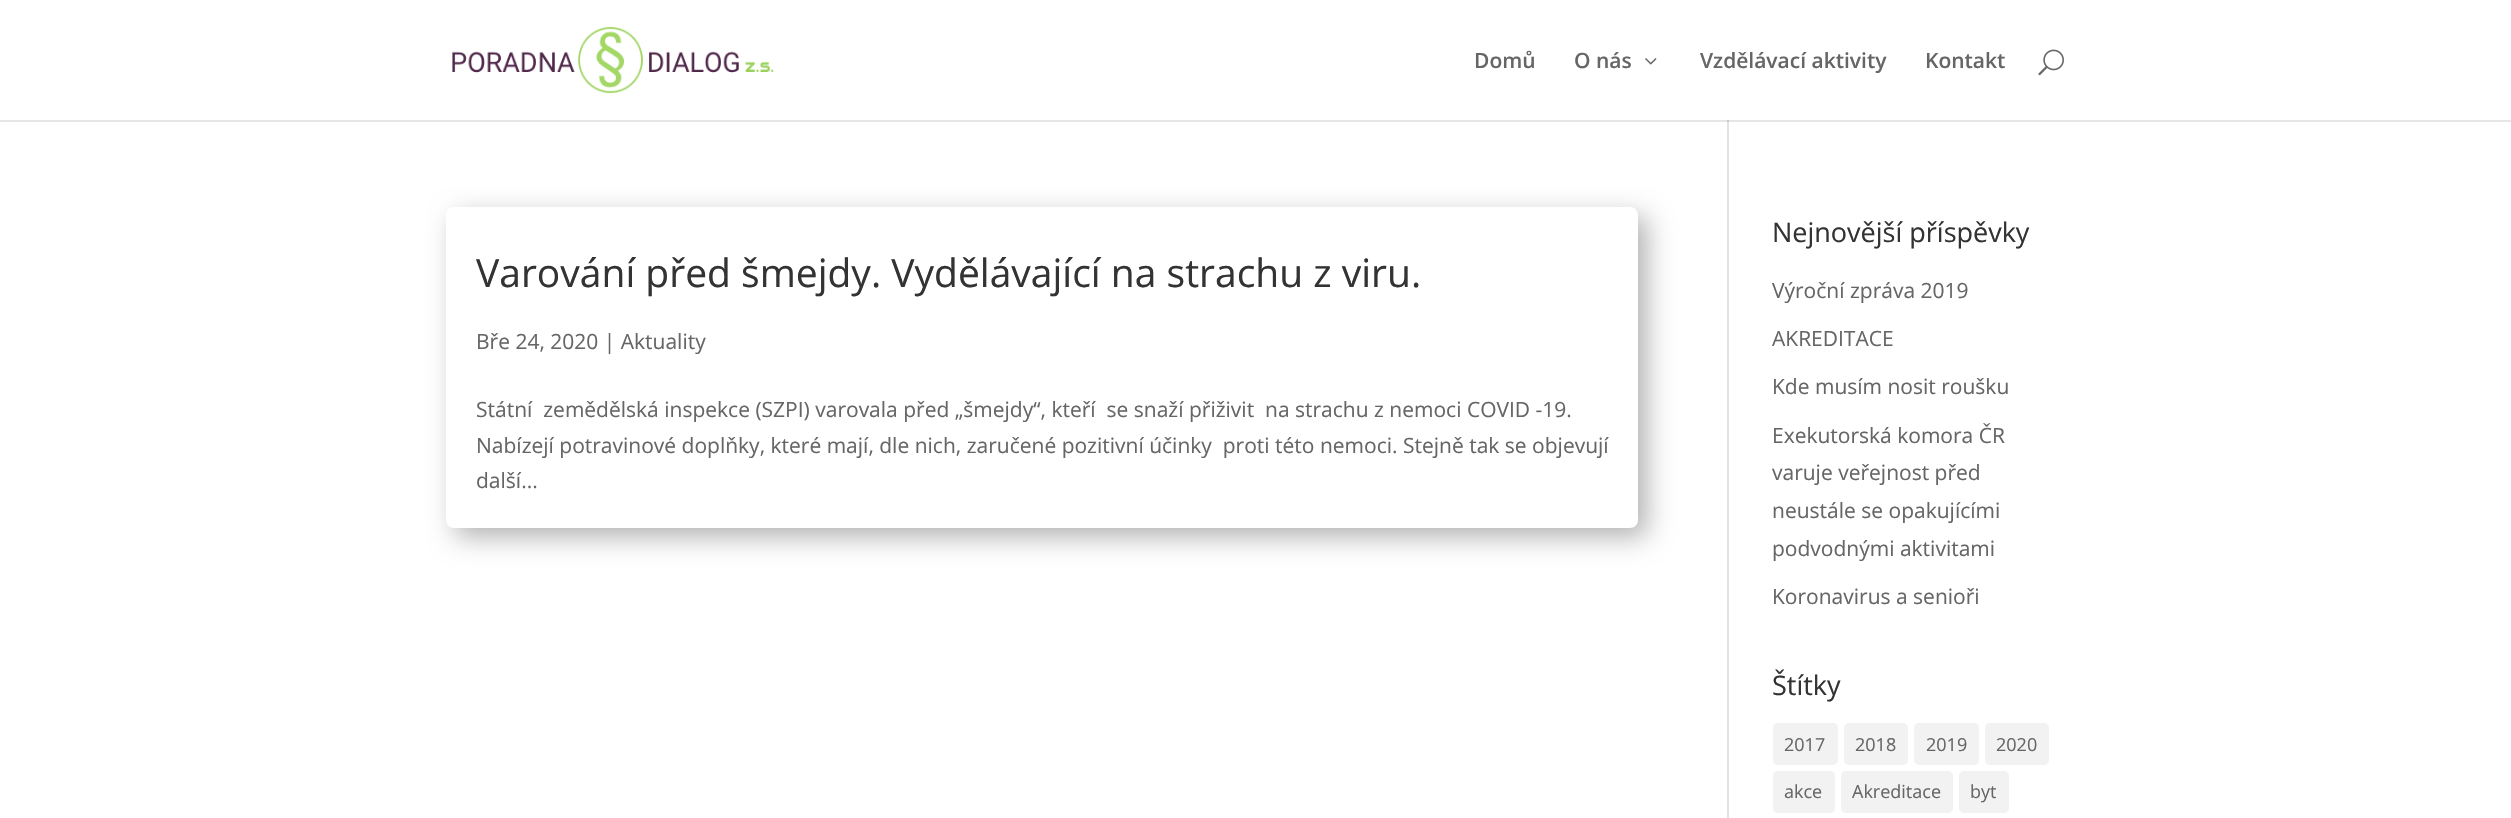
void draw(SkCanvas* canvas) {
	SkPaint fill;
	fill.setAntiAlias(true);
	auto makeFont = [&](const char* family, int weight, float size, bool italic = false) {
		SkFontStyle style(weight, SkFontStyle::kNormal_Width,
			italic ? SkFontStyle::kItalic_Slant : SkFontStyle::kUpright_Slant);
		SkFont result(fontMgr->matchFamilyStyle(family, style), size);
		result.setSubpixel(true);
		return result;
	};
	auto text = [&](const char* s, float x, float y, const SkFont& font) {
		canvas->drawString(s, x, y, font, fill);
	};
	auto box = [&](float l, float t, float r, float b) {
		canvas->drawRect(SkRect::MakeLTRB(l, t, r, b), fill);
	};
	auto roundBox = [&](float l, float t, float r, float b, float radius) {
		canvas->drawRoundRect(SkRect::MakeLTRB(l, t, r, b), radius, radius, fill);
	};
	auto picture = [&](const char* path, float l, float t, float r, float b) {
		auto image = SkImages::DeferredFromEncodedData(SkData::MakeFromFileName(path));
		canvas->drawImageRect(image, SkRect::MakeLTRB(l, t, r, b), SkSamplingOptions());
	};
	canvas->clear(0xFFFFFFFF);
	fill.setColor(0xFFE6E6E6);
	box(0, 120, 2511, 122);
	picture("image0.png", 452, 27, 774, 93);
	picture("image1.png", 1645, 58, 1657, 65);
	picture("image2.png", 2038, 49, 2064, 76);
	fill.setColor(0xFFE2E2E2);
	box(1727, 120, 1729, 818);
	fill.setColor(0xFFCBCBCB);
	box(1727, 120, 1729, 122);
	canvas->save();
	canvas->clipPath(SkPathBuilder(SkPathFillType::kEvenOdd).moveTo(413, 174).lineTo(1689, 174).lineTo(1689, 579).lineTo(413, 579).close().moveTo(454, 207).lineTo(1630, 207).cubicTo(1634.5f, 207, 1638, 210.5f, 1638, 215).lineTo(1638, 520).cubicTo(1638, 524.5f, 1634.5f, 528, 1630, 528).lineTo(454, 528).cubicTo(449.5f, 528, 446, 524.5f, 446, 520).lineTo(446, 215).cubicTo(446, 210.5f, 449.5f, 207, 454, 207).close().detach(), true);
	fill.setColor(0x4D000000);
	fill.setMaskFilter(SkMaskFilter::MakeBlur(kNormal_SkBlurStyle, 13.5f));
	canvas->drawRoundRect(SkRect::MakeLTRB(455, 216, 1647, 537), 8, 8, fill);
	fill.setMaskFilter(nullptr);
	canvas->restore();
	fill.setColor(0xFFF2F2F2);
	roundBox(1773, 723, 1838, 765, 5);
	roundBox(1844, 723, 1908, 765, 5);
	roundBox(1914, 723, 1979, 765, 5);
	roundBox(1985, 723, 2049, 765, 5);
	roundBox(1773, 771, 1835, 813, 5);
	roundBox(1841, 771, 1953, 813, 5);
	roundBox(1959, 771, 2009, 813, 5);
	auto font1 = makeFont("Open Sans", 600, 21);
	fill.setColor(0xFF666666);
	text("Domů", 1474, 68, font1);
	text("O nás", 1574, 68, font1);
	text("Vzdělávací aktivity", 1700, 68, font1);
	text("Kontakt", 1925, 68, font1);
	auto font2 = makeFont("Open Sans", 400, 39);
	fill.setColor(0xFF333333);
	text("Varování před šmejdy. Vydělávající na strachu z viru.", 476, 287, font2);
	auto font3 = makeFont("Open Sans", 400, 21);
	fill.setColor(0xFF666666);
	text("Bře 24, 2020 | Aktuality", 476, 349, font3);
	text("Státní  zemědělská inspekce (SZPI) varovala před „šmejdy“, kteří  se snaží přiživit  na strachu z nemoci COVID -19.", 476, 417, font3);
	text("Nabízejí potravinové doplňky, které mají, dle nich, zaručené pozitivní účinky  proti této nemoci. Stejně tak se objevují", 476, 453, font3);
	text("další...", 476, 488, font3);
	auto font4 = makeFont("Open Sans", 400, 27);
	fill.setColor(0xFF333333);
	text("Nejnovější příspěvky", 1772, 242, font4);
	fill.setColor(0xFF666666);
	text("Výroční zpráva 2019", 1772, 298, font3);
	text("AKREDITACE", 1772, 346, font3);
	text("Kde musím nosit roušku", 1772, 394, font3);
	text("Exekutorská komora ČR", 1772, 443, font3);
	text("varuje veřejnost před", 1772, 480, font3);
	text("neustále se opakujícími", 1772, 518, font3);
	text("podvodnými aktivitami", 1772, 556, font3);
	text("Koronavirus a senioři", 1772, 604, font3);
	fill.setColor(0xFF333333);
	text("Štítky", 1772, 695, font4);
	auto font5 = makeFont("Open Sans", 400, 18);
	fill.setColor(0xFF666666);
	text("2017", 1784, 751, font5);
	text("2018", 1855, 751, font5);
	text("2019", 1926, 751, font5);
	text("2020", 1996, 751, font5);
	text("akce", 1784, 798, font5);
	text("Akreditace", 1852, 798, font5);
	text("byt", 1970, 798, font5);
}
